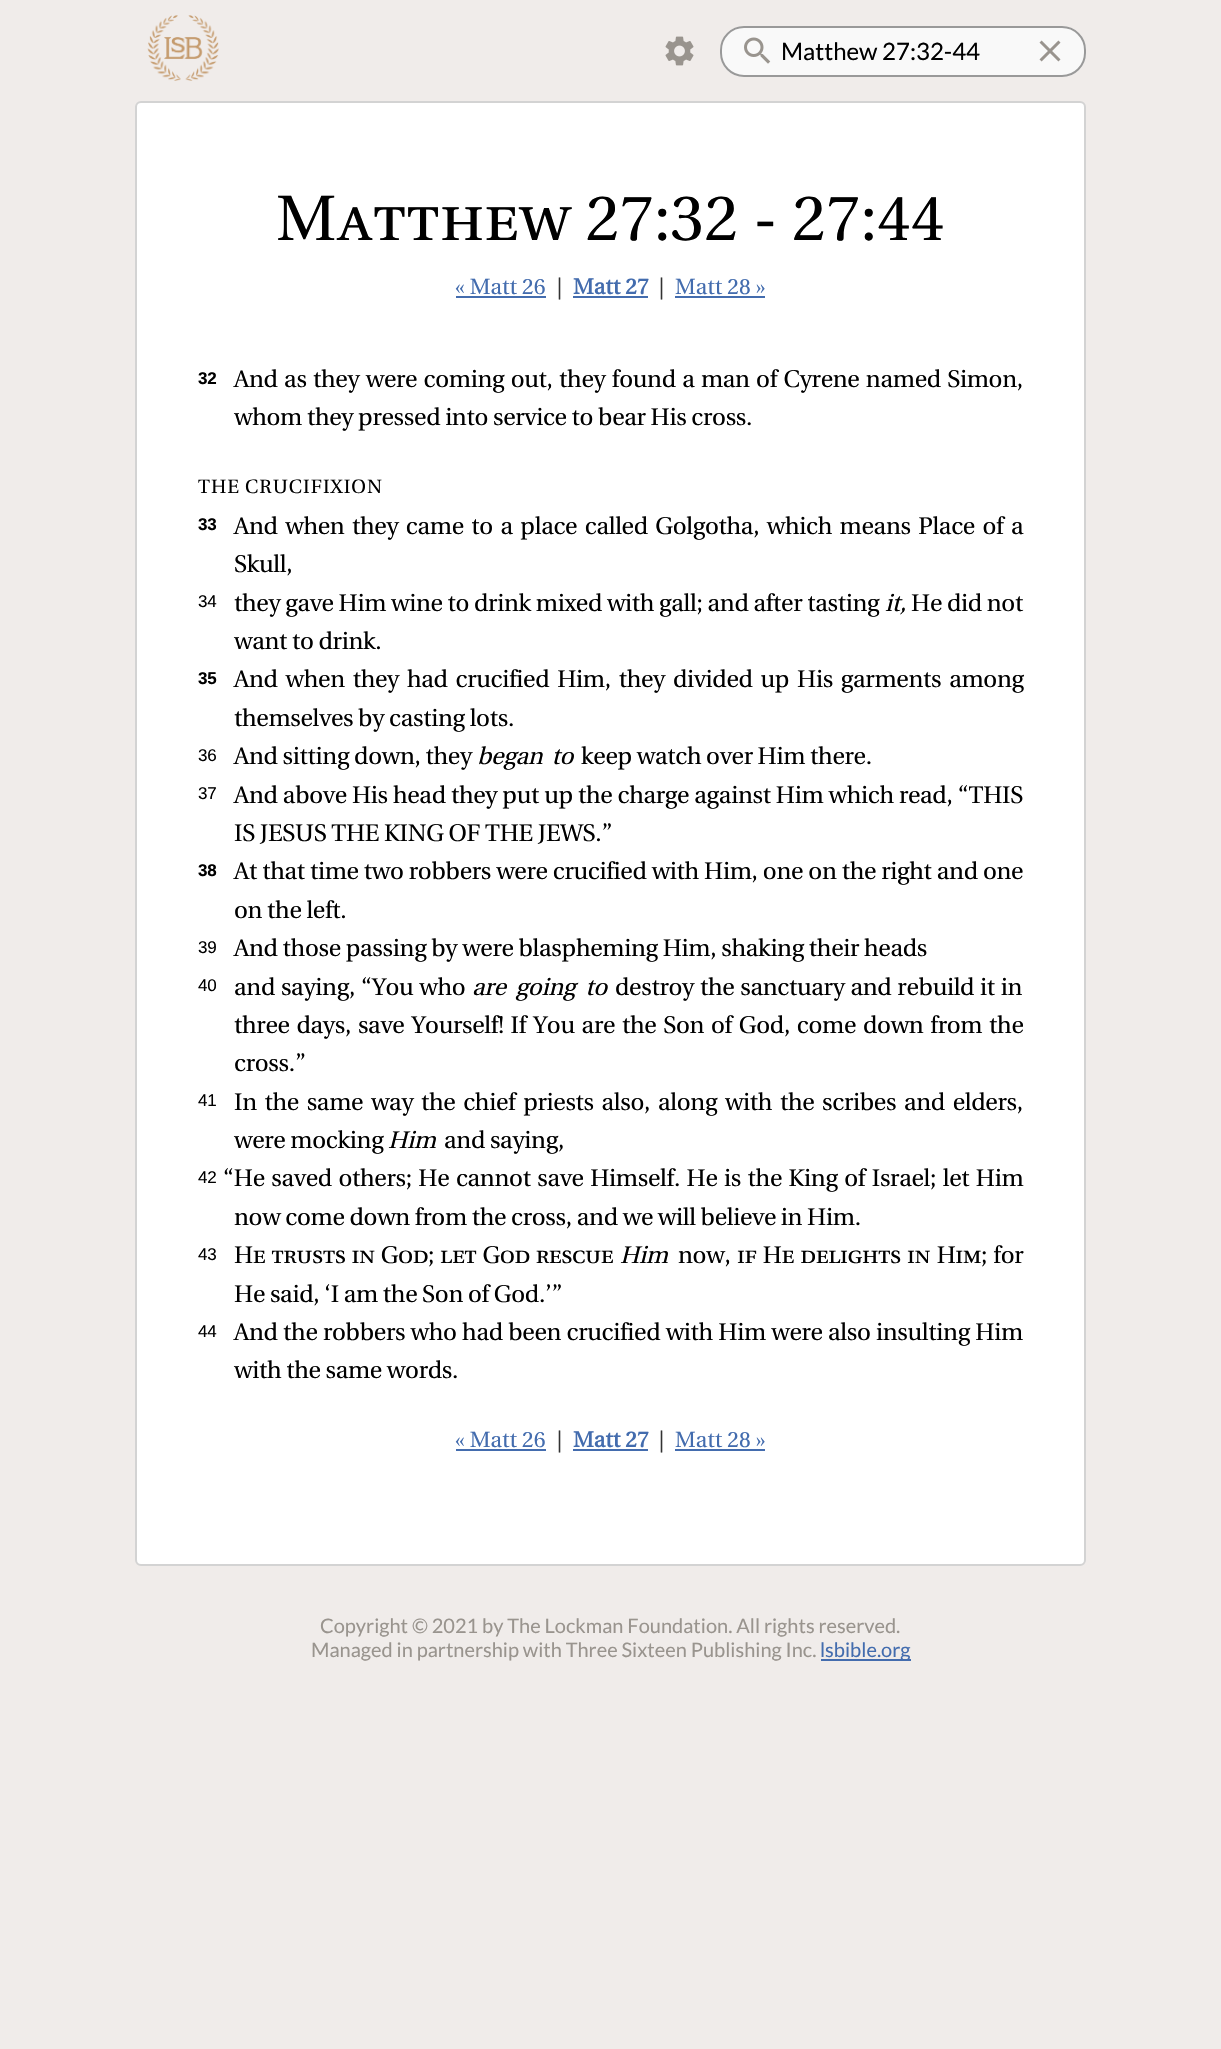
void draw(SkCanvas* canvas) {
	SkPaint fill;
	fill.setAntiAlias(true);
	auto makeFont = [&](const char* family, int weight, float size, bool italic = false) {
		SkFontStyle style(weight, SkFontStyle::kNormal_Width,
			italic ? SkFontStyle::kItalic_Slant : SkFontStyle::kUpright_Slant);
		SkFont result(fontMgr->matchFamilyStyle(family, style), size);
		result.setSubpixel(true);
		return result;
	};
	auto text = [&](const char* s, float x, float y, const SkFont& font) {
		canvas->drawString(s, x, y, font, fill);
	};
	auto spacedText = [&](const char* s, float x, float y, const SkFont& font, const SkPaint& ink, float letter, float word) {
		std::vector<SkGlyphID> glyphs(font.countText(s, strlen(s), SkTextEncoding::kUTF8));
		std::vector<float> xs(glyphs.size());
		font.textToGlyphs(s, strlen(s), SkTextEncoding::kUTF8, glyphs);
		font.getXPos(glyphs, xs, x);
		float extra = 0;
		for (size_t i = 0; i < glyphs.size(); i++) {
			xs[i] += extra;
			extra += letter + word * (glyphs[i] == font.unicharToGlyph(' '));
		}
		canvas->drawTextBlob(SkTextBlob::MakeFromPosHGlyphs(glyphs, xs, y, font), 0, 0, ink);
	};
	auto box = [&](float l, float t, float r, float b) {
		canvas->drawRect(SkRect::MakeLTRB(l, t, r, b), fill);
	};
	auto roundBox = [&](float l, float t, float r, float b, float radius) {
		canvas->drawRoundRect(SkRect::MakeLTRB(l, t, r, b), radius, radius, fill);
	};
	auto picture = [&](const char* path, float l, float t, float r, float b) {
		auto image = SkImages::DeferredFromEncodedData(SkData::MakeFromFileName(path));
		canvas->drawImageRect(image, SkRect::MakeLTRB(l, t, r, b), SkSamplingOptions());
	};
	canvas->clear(0xFFF0ECEA);
	picture("image0.png", 147, 15, 219, 81);
	picture("image1.png", 665, 36, 694, 66);
	fill.setColor(0xFFF9F9F9);
	roundBox(720, 26, 1086, 77, 24);
	picture("image2.png", 744, 37, 771, 64);
	fill.setStyle(SkPaint::kStroke_Style);
	fill.setStrokeWidth(2);
	fill.setColor(0xFF999999);
	canvas->drawRoundRect(SkRect::MakeLTRB(721, 27, 1085, 76), 23, 23, fill);
	picture("image3.png", 1039, 40, 1061, 62);
	fill.setStyle(SkPaint::kFill_Style);
	fill.setColor(0xFFFFFFFF);
	canvas->drawRoundRect(SkRect::MakeLTRB(136, 102, 1085, 1565), 5, 5, fill);
	fill.setStyle(SkPaint::kStroke_Style);
	fill.setColor(0xFFD3D3D3);
	canvas->drawRoundRect(SkRect::MakeLTRB(136, 102, 1085, 1565), 5, 5, fill);
	fill.setStyle(SkPaint::kFill_Style);
	fill.setColor(0xFF436CAE);
	box(456, 296, 546, 298);
	box(573, 296, 648, 298);
	box(675, 296, 765, 298);
	box(456, 1449, 546, 1451);
	box(573, 1449, 648, 1451);
	box(675, 1449, 765, 1451);
	box(821, 1659, 911, 1661);
	auto font1 = makeFont("Lato", 400, 24);
	fill.setColor(0xFF000000);
	text("Matthew 27:32-44", 781, 60, font1);
	auto font2 = makeFont("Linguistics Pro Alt", 400, 64);
	text("Matthew 27:32 - 27:44", 276, 240, font2);
	auto font3 = makeFont("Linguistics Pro", 400, 22);
	fill.setColor(0xFF436CAE);
	text("« Matt 26", 455, 294, font3);
	fill.setColor(0xFF333333);
	text("|", 557, 294, font3);
	auto font4 = makeFont("Linguistics Pro", 700, 22);
	fill.setColor(0xFF436CAE);
	text("Matt 27", 573, 294, font4);
	fill.setColor(0xFF333333);
	text("|", 659, 294, font3);
	fill.setColor(0xFF436CAE);
	text("Matt 28 »", 675, 294, font3);
	auto font5 = makeFont("Liberation Sans", 700, 17);
	fill.setColor(0xFF000000);
	spacedText("32", 198, 384, font5, fill, -0.25f, 0);
	auto font6 = makeFont("Linguistics Pro", 400, 24);
	spacedText("And as they were coming out, they found a man of Cyrene named Simon,", 234, 387, font6, fill, -0.25f, 1.25f);
	spacedText("whom they pressed into service to bear His cross.", 234, 425, font6, fill, -0.25f, -0.25f);
	auto font7 = makeFont("Linguistics Pro", 400, 19.25f);
	spacedText("THE CRUCIFIXION", 198, 493, font7, fill, 1, -0.25f);
	spacedText("33", 198, 530, font5, fill, -0.25f, 0);
	spacedText("And when they came to a place called Golgotha, which means Place of a", 234, 534, font6, fill, -0.25f, 2.4f);
	spacedText("Skull,", 234, 572, font6, fill, -0.25f, 0);
	auto font8 = makeFont("Liberation Sans", 400, 17);
	spacedText("34", 198, 607, font8, fill, -0.25f, 0);
	spacedText("they gave Him wine to drink mixed with gall; and after tasting", 234, 611, font6, fill, -0.25f, -0.25f);
	auto font9 = makeFont("Linguistics Pro", 400, 24, true);
	spacedText("it,", 885, 611, font9, fill, -0.25f, 0);
	spacedText("He did not", 911, 611, font6, fill, -0.25f, -0.25f);
	spacedText("want to drink.", 234, 649, font6, fill, -0.25f, -0.25f);
	spacedText("35", 198, 684, font5, fill, -0.25f, 0);
	spacedText("And when they had crucified Him, they divided up His garments among", 234, 687, font6, fill, -0.25f, 2.75f);
	spacedText("themselves by casting lots.", 234, 726, font6, fill, -0.25f, -0.25f);
	spacedText("36", 198, 761, font8, fill, -0.25f, 0);
	spacedText("And sitting down, they", 234, 764, font6, fill, -0.25f, -0.25f);
	spacedText("began to", 477, 764, font9, fill, -0.25f, 4);
	spacedText("keep watch over Him there.", 581, 764, font6, fill, -0.25f, -0.25f);
	spacedText("37", 198, 799, font8, fill, -0.25f, 0);
	spacedText("And above His head they put up the charge against Him which read, “THIS", 234, 803, font6, fill, -0.25f, 0);
	spacedText("IS JESUS THE KING OF THE JEWS.”", 234, 841, font6, fill, -0.25f, -0.25f);
	spacedText("38", 198, 876, font5, fill, -0.25f, 0);
	spacedText("At that time two robbers were crucified with Him, one on the right and one", 234, 879, font6, fill, -0.25f, 0);
	spacedText("on the left.", 234, 918, font6, fill, -0.25f, -0.25f);
	spacedText("39", 198, 953, font8, fill, -0.25f, 0);
	spacedText("And those passing by were blaspheming Him, shaking their heads", 234, 956, font6, fill, -0.25f, -0.25f);
	spacedText("40", 198, 991, font8, fill, -0.25f, 0);
	spacedText("and saying, “You who", 234, 995, font6, fill, -0.25f, 0.75f);
	spacedText("are going to", 472, 995, font9, fill, -0.25f, 5);
	spacedText("destroy the sanctuary and rebuild it in", 615, 995, font6, fill, -0.25f, 0.75f);
	spacedText("three days, save Yourself! If You are the Son of God, come down from the", 234, 1033, font6, fill, -0.25f, 1.7f);
	spacedText("cross.”", 234, 1071, font6, fill, -0.25f, 0);
	spacedText("41", 198, 1106, font8, fill, -0.25f, 0);
	spacedText("In the same way the chief priests also, along with the scribes and elders,", 234, 1110, font6, fill, -0.25f, 2.6f);
	spacedText("were mocking", 234, 1148, font6, fill, -0.25f, -0.25f);
	spacedText("Him", 388, 1148, font9, fill, -0.25f, 0);
	spacedText("and saying,", 444, 1148, font6, fill, -0.25f, -0.25f);
	spacedText("42", 198, 1183, font8, fill, -0.25f, 0);
	spacedText("“He saved others; He cannot save Himself. He is the King of Israel; let Him", 223, 1186, font6, fill, -0.25f, 1.4f);
	spacedText("now come down from the cross, and we will believe in Him.", 234, 1225, font6, fill, -0.25f, -0.25f);
	spacedText("43", 198, 1260, font8, fill, -0.25f, 0);
	auto font10 = makeFont("Linguistics Pro Alt", 400, 24);
	spacedText("He trusts in God; let God rescue", 234, 1263, font10, fill, -0.5f, 1.25f);
	spacedText("Him", 620, 1263, font9, fill, -0.25f, 0);
	spacedText("now,", 678, 1263, font6, fill, -0.25f, 0);
	spacedText("if He delights in Him", 737, 1263, font10, fill, -0.5f, 1.5f);
	spacedText("; for", 981, 1263, font6, fill, -0.25f, 1);
	spacedText("He said, ‘I am the Son of God.’”", 234, 1302, font6, fill, -0.25f, -0.25f);
	spacedText("44", 198, 1337, font8, fill, -0.25f, 0);
	spacedText("And the robbers who had been crucified with Him were also insulting Him", 234, 1340, font6, fill, -0.25f, 0.25f);
	spacedText("with the same words.", 234, 1378, font6, fill, -0.25f, -0.25f);
	fill.setColor(0xFF436CAE);
	text("« Matt 26", 455, 1447, font3);
	fill.setColor(0xFF333333);
	text("|", 557, 1447, font3);
	fill.setColor(0xFF436CAE);
	text("Matt 27", 573, 1447, font4);
	fill.setColor(0xFF333333);
	text("|", 659, 1447, font3);
	fill.setColor(0xFF436CAE);
	text("Matt 28 »", 675, 1447, font3);
	auto font11 = makeFont("Lato", 400, 20);
	fill.setColor(0xFF99948E);
	text("Copyright © 2021 by The Lockman Foundation. All rights reserved.", 320, 1633, font11);
	text("Managed in partnership with Three Sixteen Publishing Inc.", 311, 1657, font11);
	fill.setColor(0xFF436CAE);
	text("lsbible.org", 820, 1657, font11);
}
